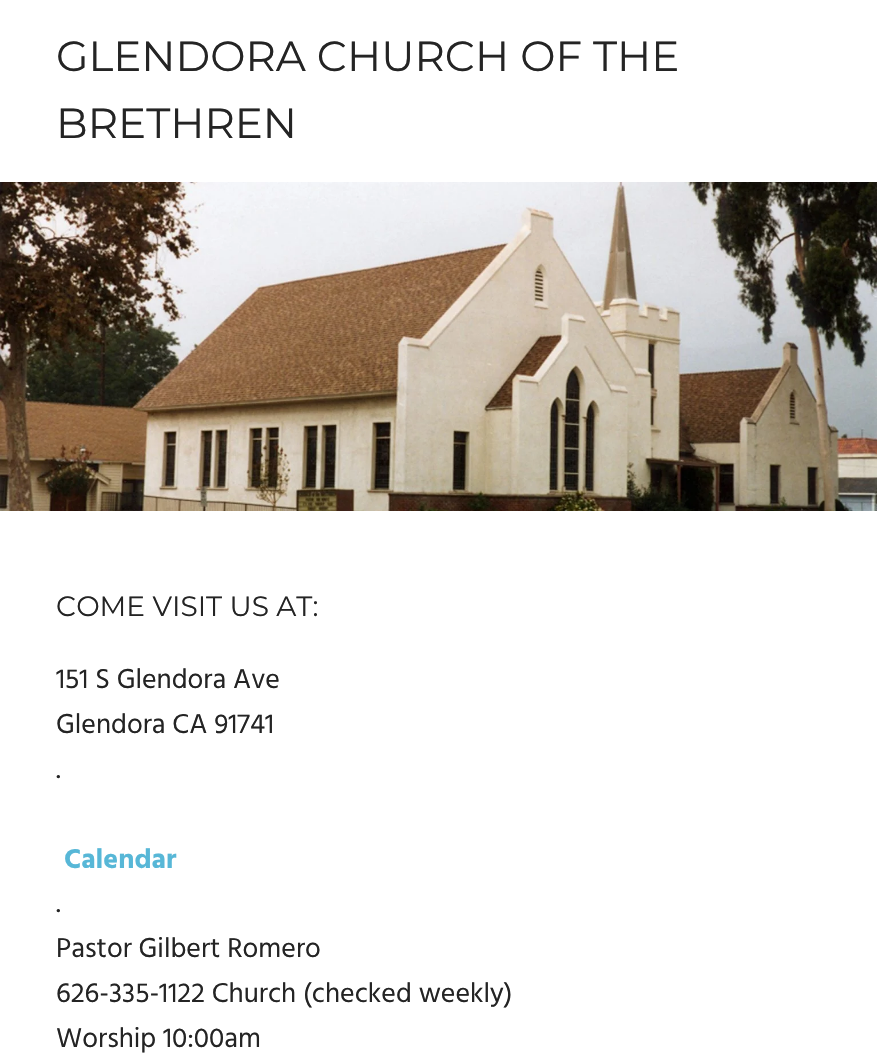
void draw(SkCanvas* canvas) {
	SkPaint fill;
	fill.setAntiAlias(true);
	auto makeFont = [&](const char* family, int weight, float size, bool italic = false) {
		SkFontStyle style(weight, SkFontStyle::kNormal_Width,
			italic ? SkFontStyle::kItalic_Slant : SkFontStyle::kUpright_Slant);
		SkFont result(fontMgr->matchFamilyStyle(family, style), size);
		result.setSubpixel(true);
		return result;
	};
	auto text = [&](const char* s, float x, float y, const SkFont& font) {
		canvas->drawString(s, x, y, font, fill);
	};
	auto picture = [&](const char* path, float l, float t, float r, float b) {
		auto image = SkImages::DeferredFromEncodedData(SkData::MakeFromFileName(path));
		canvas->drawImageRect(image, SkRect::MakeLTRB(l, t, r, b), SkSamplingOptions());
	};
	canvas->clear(0xFFFFFFFF);
	picture("image0.png", 0, 182, 877, 511);
	auto font1 = makeFont("Montserrat", 400, 42);
	fill.setColor(0xFF242424);
	text("GLENDORA CHURCH OF THE", 56, 71, font1);
	text("BRETHREN", 56, 138, font1);
	auto font2 = makeFont("Montserrat", 400, 28);
	text("COME VISIT US AT:", 56, 616, font2);
	auto font3 = makeFont("Hind", 400, 28);
	text("151 S Glendora Ave", 56, 688, font3);
	text("Glendora CA 91741", 56, 733, font3);
	text(".", 56, 778, font3);
	auto font4 = makeFont("Hind", 700, 28);
	fill.setColor(0xFF57B7D7);
	text("Calendar", 64, 868, font4);
	fill.setColor(0xFF242424);
	text(".", 56, 912, font3);
	text("Pastor Gilbert Romero", 56, 957, font3);
	text("626-335-1122 Church (checked weekly)", 56, 1002, font3);
	text("Worship 10:00am", 56, 1047, font3);
}
